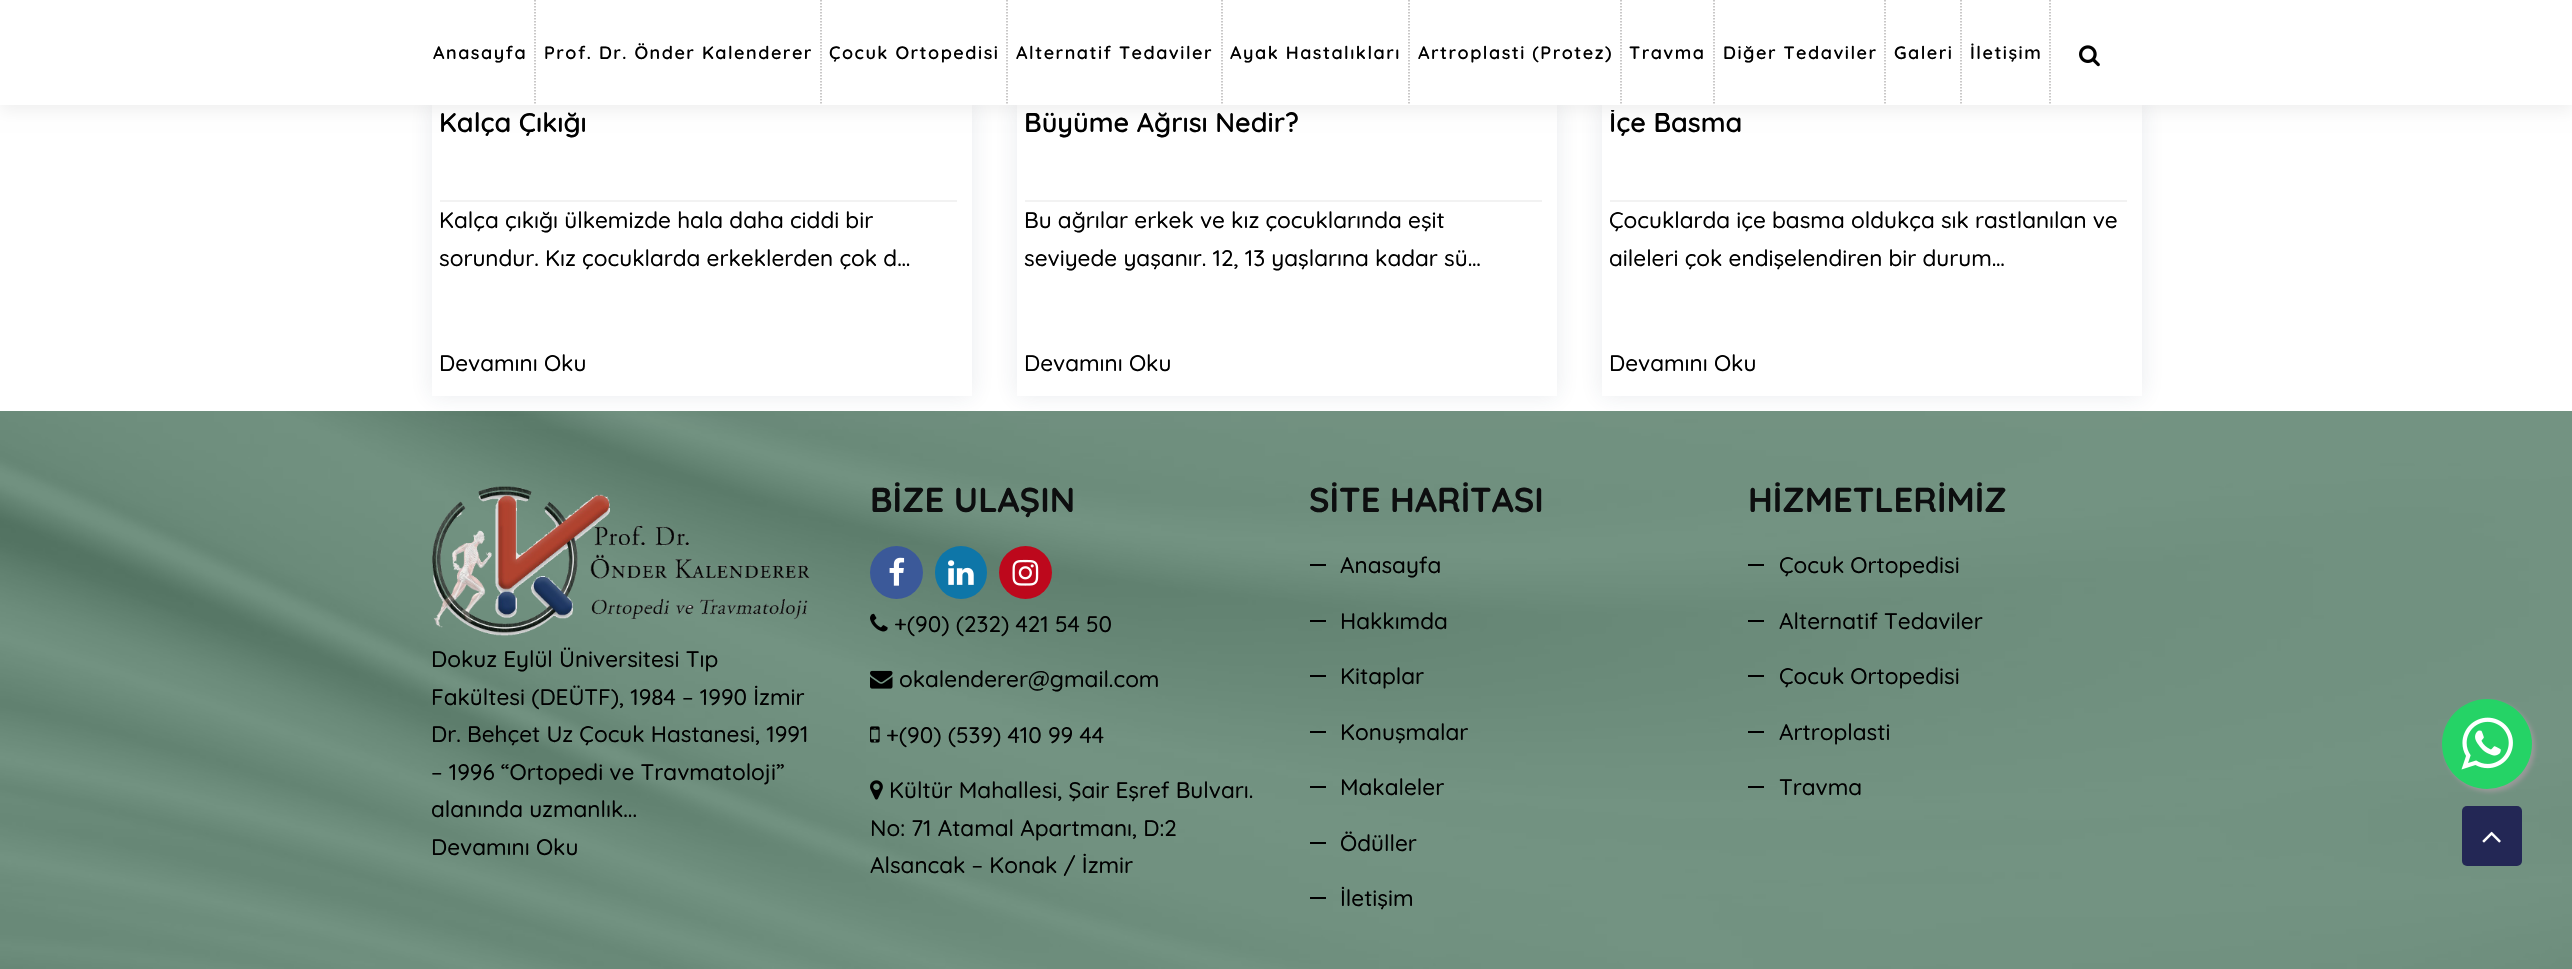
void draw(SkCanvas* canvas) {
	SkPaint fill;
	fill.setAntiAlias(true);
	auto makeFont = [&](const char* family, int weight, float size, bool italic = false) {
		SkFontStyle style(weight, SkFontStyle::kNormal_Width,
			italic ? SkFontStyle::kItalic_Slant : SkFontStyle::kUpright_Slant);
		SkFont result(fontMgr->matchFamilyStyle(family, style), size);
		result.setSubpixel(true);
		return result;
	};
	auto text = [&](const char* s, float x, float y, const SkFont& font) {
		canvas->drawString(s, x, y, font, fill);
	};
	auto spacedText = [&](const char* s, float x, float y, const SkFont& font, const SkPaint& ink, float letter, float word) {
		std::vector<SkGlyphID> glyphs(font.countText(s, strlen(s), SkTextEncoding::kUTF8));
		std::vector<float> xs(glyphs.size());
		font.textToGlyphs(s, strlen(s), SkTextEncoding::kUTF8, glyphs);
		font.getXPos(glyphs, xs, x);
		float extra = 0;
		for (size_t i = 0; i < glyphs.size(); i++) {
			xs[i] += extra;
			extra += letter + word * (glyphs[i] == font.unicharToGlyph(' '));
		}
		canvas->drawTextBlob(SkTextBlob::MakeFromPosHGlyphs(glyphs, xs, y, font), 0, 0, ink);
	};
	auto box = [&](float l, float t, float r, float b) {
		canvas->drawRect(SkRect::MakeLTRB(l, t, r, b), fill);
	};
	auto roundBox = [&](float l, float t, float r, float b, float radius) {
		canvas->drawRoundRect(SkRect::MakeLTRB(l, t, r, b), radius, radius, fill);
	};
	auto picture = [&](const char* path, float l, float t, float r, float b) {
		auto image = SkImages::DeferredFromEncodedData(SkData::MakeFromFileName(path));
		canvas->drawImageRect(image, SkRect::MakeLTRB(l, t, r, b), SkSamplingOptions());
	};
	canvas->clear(0xFFFFFFFF);
	fill.setColor(0x0F000000);
	fill.setMaskFilter(SkMaskFilter::MakeBlur(kNormal_SkBlurStyle, 7.5f));
	canvas->drawRect(SkRect::MakeLTRB(0, 6, 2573, 111), fill);
	fill.setMaskFilter(nullptr);
	fill.setColor(0xFF154A2E);
	box(0, 411, 2572, 969);
	picture("image1.png", 0, 411, 2572, 969);
	canvas->save();
	canvas->clipPath(SkPathBuilder(SkPathFillType::kEvenOdd).moveTo(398, 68).lineTo(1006, 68).lineTo(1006, 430).lineTo(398, 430).close().moveTo(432, 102).lineTo(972, 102).lineTo(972, 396).lineTo(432, 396).close().detach(), true);
	fill.setColor(0x1A293D58);
	fill.setMaskFilter(SkMaskFilter::MakeBlur(kNormal_SkBlurStyle, 11));
	canvas->drawRect(SkRect::MakeLTRB(432, 102, 972, 396), fill);
	fill.setMaskFilter(nullptr);
	canvas->restore();
	canvas->save();
	canvas->clipPath(SkPathBuilder(SkPathFillType::kEvenOdd).moveTo(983, 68).lineTo(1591, 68).lineTo(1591, 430).lineTo(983, 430).close().moveTo(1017, 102).lineTo(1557, 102).lineTo(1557, 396).lineTo(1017, 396).close().detach(), true);
	fill.setMaskFilter(SkMaskFilter::MakeBlur(kNormal_SkBlurStyle, 11));
	canvas->drawRect(SkRect::MakeLTRB(1017, 102, 1557, 396), fill);
	fill.setMaskFilter(nullptr);
	canvas->restore();
	canvas->save();
	canvas->clipPath(SkPathBuilder(SkPathFillType::kEvenOdd).moveTo(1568, 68).lineTo(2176, 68).lineTo(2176, 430).lineTo(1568, 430).close().moveTo(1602, 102).lineTo(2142, 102).lineTo(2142, 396).lineTo(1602, 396).close().detach(), true);
	fill.setMaskFilter(SkMaskFilter::MakeBlur(kNormal_SkBlurStyle, 11));
	canvas->drawRect(SkRect::MakeLTRB(1602, 102, 2142, 396), fill);
	fill.setMaskFilter(nullptr);
	canvas->restore();
	fill.setColor(0xFFFFFFFF);
	box(0, 0, 2572, 105);
	fill.setStyle(SkPaint::kStroke_Style);
	fill.setStrokeWidth(1.5f);
	fill.setColor(0xFFB7B6B6);
	fill.setPathEffect(SkDashPathEffect::Make({{1.5f, 1.5f}}, 0));
	canvas->drawPath(SkPathBuilder().moveTo(535, 0).lineTo(535, 105).detach(), fill);
	fill.setPathEffect(nullptr);
	fill.setPathEffect(SkDashPathEffect::Make({{1.5f, 1.5f}}, 0));
	canvas->drawPath(SkPathBuilder().moveTo(821, 0).lineTo(821, 105).detach(), fill);
	fill.setPathEffect(nullptr);
	fill.setPathEffect(SkDashPathEffect::Make({{1.5f, 1.5f}}, 0));
	canvas->drawPath(SkPathBuilder().moveTo(1007, 0).lineTo(1007, 105).detach(), fill);
	fill.setPathEffect(nullptr);
	fill.setPathEffect(SkDashPathEffect::Make({{1.5f, 1.5f}}, 0));
	canvas->drawPath(SkPathBuilder().moveTo(1222, 0).lineTo(1222, 105).detach(), fill);
	fill.setPathEffect(nullptr);
	fill.setPathEffect(SkDashPathEffect::Make({{1.5f, 1.5f}}, 0));
	canvas->drawPath(SkPathBuilder().moveTo(1409, 0).lineTo(1409, 105).detach(), fill);
	fill.setPathEffect(nullptr);
	fill.setPathEffect(SkDashPathEffect::Make({{1.5f, 1.5f}}, 0));
	canvas->drawPath(SkPathBuilder().moveTo(1621, 0).lineTo(1621, 105).detach(), fill);
	fill.setPathEffect(nullptr);
	fill.setPathEffect(SkDashPathEffect::Make({{1.5f, 1.5f}}, 0));
	canvas->drawPath(SkPathBuilder().moveTo(1714, 0).lineTo(1714, 105).detach(), fill);
	fill.setPathEffect(nullptr);
	fill.setPathEffect(SkDashPathEffect::Make({{1.5f, 1.5f}}, 0));
	canvas->drawPath(SkPathBuilder().moveTo(1885, 0).lineTo(1885, 105).detach(), fill);
	fill.setPathEffect(nullptr);
	fill.setPathEffect(SkDashPathEffect::Make({{1.5f, 1.5f}}, 0));
	canvas->drawPath(SkPathBuilder().moveTo(1961, 0).lineTo(1961, 105).detach(), fill);
	fill.setPathEffect(nullptr);
	fill.setPathEffect(SkDashPathEffect::Make({{1.5f, 1.5f}}, 0));
	canvas->drawPath(SkPathBuilder().moveTo(2050, 0).lineTo(2050, 105).detach(), fill);
	fill.setPathEffect(nullptr);
	picture("image0.png", 2079, 45, 2100, 67);
	fill.setStyle(SkPaint::kFill_Style);
	fill.setColor(0xFFF2F2F2);
	box(440, 200, 957, 202);
	box(1025, 200, 1542, 202);
	box(1610, 200, 2127, 202);
	picture("image2.png", 432, 486, 810, 636);
	fill.setColor(0xFF3B5999);
	canvas->drawCircle(896.5f, 572.5f, 26.5f, fill);
	picture("image3.png", 889, 557, 905, 586);
	fill.setColor(0xFF0E76A8);
	roundBox(935, 546, 987, 599, 26);
	picture("image4.png", 948, 560, 974, 585);
	fill.setColor(0xFFBD081C);
	canvas->drawCircle(1025.5f, 572.5f, 26.5f, fill);
	picture("image5.png", 1012, 559, 1039, 586);
	picture("image6.png", 870, 613, 888, 632);
	picture("image7.png", 870, 670, 893, 689);
	picture("image8.png", 870, 726, 880, 743);
	picture("image9.png", 870, 780, 883, 800);
	fill.setColor(0xFF000000);
	box(1310, 564, 1326, 566);
	box(1310, 620, 1326, 622);
	box(1310, 675, 1326, 677);
	box(1310, 731, 1326, 733);
	box(1310, 786, 1326, 788);
	box(1310, 842, 1326, 844);
	box(1310, 897, 1326, 899);
	box(1748, 564, 1764, 566);
	box(1748, 620, 1764, 622);
	box(1748, 675, 1764, 677);
	box(1748, 731, 1764, 733);
	box(1748, 786, 1764, 788);
	fill.setColor(0xFF999999);
	fill.setMaskFilter(SkMaskFilter::MakeBlur(kNormal_SkBlurStyle, 2));
	canvas->drawRoundRect(SkRect::MakeLTRB(2445, 702, 2535, 792), 45, 45, fill);
	fill.setMaskFilter(nullptr);
	fill.setColor(0xFF25D366);
	canvas->drawCircle(2487, 744, 45, fill);
	picture("image10.png", 2461, 717, 2513, 770);
	fill.setColor(0xFF232755);
	roundBox(2462, 806, 2522, 866, 5);
	picture("image11.png", 2482, 831, 2501, 843);
	auto font1 = makeFont("Quicksand", 600, 18);
	fill.setColor(0xFF000000);
	spacedText("Anasayfa", 433, 59, font1, fill, 1.5f, 0);
	spacedText("Prof. Dr. Önder Kalenderer", 544, 59, font1, fill, 1.5f, 0);
	spacedText("Çocuk Ortopedisi", 829, 59, font1, fill, 1.5f, 0);
	spacedText("Alternatif Tedaviler", 1016, 59, font1, fill, 1.5f, 0);
	spacedText("Ayak Hastalıkları", 1230, 59, font1, fill, 1.5f, 0);
	spacedText("Artroplasti (Protez)", 1418, 59, font1, fill, 1.5f, 0);
	spacedText("Travma", 1629, 59, font1, fill, 1.5f, 0);
	spacedText("Diğer Tedaviler", 1723, 59, font1, fill, 1.5f, 0);
	spacedText("Galeri", 1894, 59, font1, fill, 1.5f, 0);
	spacedText("İletişim", 1970, 59, font1, fill, 1.5f, 0);
	auto font2 = makeFont("Quicksand", 600, 27);
	text("Kalça Çıkığı", 439, 132, font2);
	auto font3 = makeFont("Quicksand", 500, 22.5f);
	text("Kalça çıkığı ülkemizde hala daha ciddi bir", 439, 228, font3);
	text("sorundur. Kız çocuklarda erkeklerden çok d…", 439, 266, font3);
	text("Devamını Oku", 439, 371, font3);
	text("Büyüme Ağrısı Nedir?", 1024, 132, font2);
	text("Bu ağrılar erkek ve kız çocuklarında eşit", 1024, 228, font3);
	text("seviyede yaşanır. 12, 13 yaşlarına kadar sü…", 1024, 266, font3);
	text("Devamını Oku", 1024, 371, font3);
	canvas->save();
	canvas->clipRect(SkRect::MakeLTRB(1610, 110, 2127, 200));
	text("İçe Basma", 1609, 132, font2);
	canvas->restore();
	canvas->save();
	canvas->clipRect(SkRect::MakeLTRB(1610, 201, 2127, 321));
	text("Çocuklarda içe basma oldukça sık rastlanılan ve", 1609, 228, font3);
	text("aileleri çok endişelendiren bir durum…", 1609, 266, font3);
	canvas->restore();
	text("Devamını Oku", 1609, 371, font3);
	text("Dokuz Eylül Üniversitesi Tıp", 431, 667, font3);
	text("Fakültesi (DEÜTF), 1984 – 1990 İzmir", 431, 705, font3);
	text("Dr. Behçet Uz Çocuk Hastanesi, 1991", 431, 742, font3);
	text("– 1996 “Ortopedi ve Travmatoloji”", 431, 780, font3);
	text("alanında uzmanlık...", 431, 817, font3);
	text("Devamını Oku", 431, 855, font3);
	auto font4 = makeFont("Quicksand", 700, 34.5f);
	fill.setColor(0xFF0D0E0F);
	text("BİZE ULAŞIN", 870, 512, font4);
	fill.setColor(0xFF000000);
	text("+(90) (232) 421 54 50", 894, 632, font3);
	text("okalenderer@gmail.com", 899, 687, font3);
	text("+(90) (539) 410 99 44", 886, 743, font3);
	text("Kültür Mahallesi, Şair Eşref Bulvarı.", 889, 798, font3);
	text("No: 71 Atamal Apartmanı, D:2", 870, 836, font3);
	text("Alsancak – Konak / İzmir", 870, 873, font3);
	fill.setColor(0xFF0D0E0F);
	text("SİTE HARİTASI", 1309, 512, font4);
	fill.setColor(0xFF000000);
	text("Anasayfa", 1340, 573, font3);
	text("Hakkımda", 1340, 629, font3);
	text("Kitaplar", 1340, 684, font3);
	text("Konuşmalar", 1340, 740, font3);
	text("Makaleler", 1340, 795, font3);
	text("Ödüller", 1340, 851, font3);
	text("İletişim", 1340, 906, font3);
	fill.setColor(0xFF0D0E0F);
	text("HİZMETLERİMİZ", 1748, 512, font4);
	fill.setColor(0xFF000000);
	text("Çocuk Ortopedisi", 1779, 573, font3);
	text("Alternatif Tedaviler", 1779, 629, font3);
	text("Çocuk Ortopedisi", 1779, 684, font3);
	text("Artroplasti", 1779, 740, font3);
	text("Travma", 1779, 795, font3);
}
